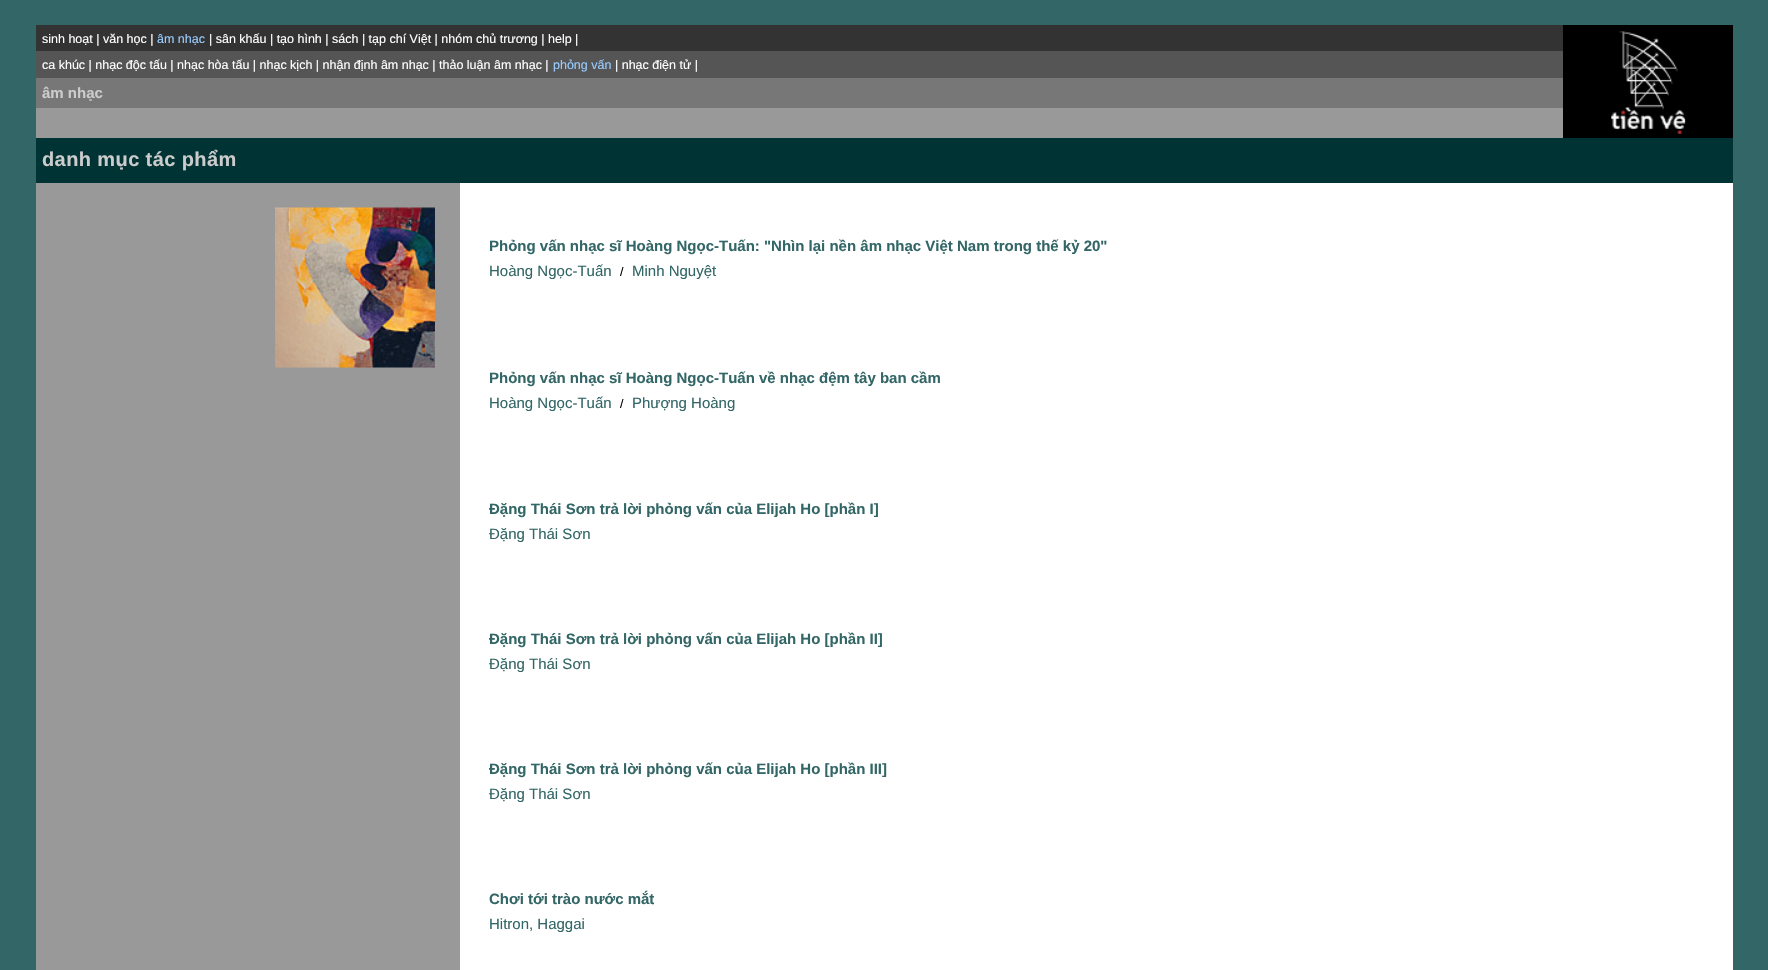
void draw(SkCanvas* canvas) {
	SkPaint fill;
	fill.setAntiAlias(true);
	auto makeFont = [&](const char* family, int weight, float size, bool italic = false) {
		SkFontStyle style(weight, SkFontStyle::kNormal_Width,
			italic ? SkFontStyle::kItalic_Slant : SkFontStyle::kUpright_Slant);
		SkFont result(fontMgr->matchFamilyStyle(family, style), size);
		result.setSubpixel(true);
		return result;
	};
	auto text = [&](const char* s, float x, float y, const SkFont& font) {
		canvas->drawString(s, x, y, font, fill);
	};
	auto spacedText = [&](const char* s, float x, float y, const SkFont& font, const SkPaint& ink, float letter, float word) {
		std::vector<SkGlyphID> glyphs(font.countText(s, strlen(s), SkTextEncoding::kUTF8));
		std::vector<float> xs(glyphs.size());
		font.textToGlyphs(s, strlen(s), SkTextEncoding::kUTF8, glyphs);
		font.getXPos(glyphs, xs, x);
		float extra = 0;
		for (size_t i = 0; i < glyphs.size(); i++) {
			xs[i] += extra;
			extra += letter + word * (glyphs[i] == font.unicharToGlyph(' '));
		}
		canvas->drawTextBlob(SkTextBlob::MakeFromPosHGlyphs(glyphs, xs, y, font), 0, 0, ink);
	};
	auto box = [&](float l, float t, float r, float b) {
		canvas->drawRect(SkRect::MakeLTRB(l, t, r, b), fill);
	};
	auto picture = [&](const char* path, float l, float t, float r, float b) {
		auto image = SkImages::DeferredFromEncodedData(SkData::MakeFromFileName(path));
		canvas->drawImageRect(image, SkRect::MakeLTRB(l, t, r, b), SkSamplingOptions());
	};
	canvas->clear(0xFF336666);
	fill.setColor(0xFF000000);
	box(1563, 25, 1733, 138);
	fill.setColor(0xFF333333);
	box(36, 25, 1563, 51);
	fill.setColor(0xFF555555);
	box(36, 51, 1563, 78);
	fill.setColor(0xFF777777);
	box(36, 78, 1563, 108);
	fill.setColor(0xFF999999);
	box(36, 108, 1563, 138);
	picture("image0.png", 1611, 31, 1686, 134);
	fill.setColor(0xFF003333);
	box(36, 138, 1733, 183);
	fill.setColor(0xFF999999);
	box(36, 183, 460, 970);
	picture("image1.png", 275, 207, 435, 368);
	fill.setColor(0xFFFFFFFF);
	box(460, 183, 1733, 970);
	auto font1 = makeFont("Liberation Sans", 400, 12.5f);
	text("sinh hoạt | văn học |", 42, 43, font1);
	fill.setColor(0xFF99CCFF);
	text("âm nhạc", 157, 43, font1);
	fill.setColor(0xFFFFFFFF);
	text("| sân khấu | tạo hình | sách | tạp chí Việt | nhóm chủ trương | help |", 209, 43, font1);
	text("ca khúc | nhạc độc tấu | nhạc hòa tấu | nhạc kịch | nhận định âm nhạc | thảo luận âm nhạc |", 42, 69, font1);
	fill.setColor(0xFF99CCFF);
	text("phỏng vấn", 553, 69, font1);
	fill.setColor(0xFFFFFFFF);
	text("| nhạc điện tử |", 615, 69, font1);
	auto font2 = makeFont("Liberation Sans", 700, 15);
	fill.setColor(0xFFCCCCCC);
	text("âm nhạc", 42, 98, font2);
	auto font3 = makeFont("Liberation Sans", 700, 20);
	spacedText("danh mục tác phẩm", 42, 166, font3, fill, 0.4f, 0);
	fill.setColor(0xFF336666);
	text("Phỏng vấn nhạc sĩ Hoàng Ngọc-Tuấn: \"Nhìn lại nền âm nhạc Việt Nam trong thế kỷ 20\"", 489, 251, font2);
	auto font4 = makeFont("Liberation Sans", 400, 15);
	text("Hoàng Ngọc-Tuấn", 489, 276, font4);
	fill.setColor(0xFF000000);
	text("/", 620, 276, font1);
	fill.setColor(0xFF336666);
	text("Minh Nguyệt", 632, 276, font4);
	text("Phỏng vấn nhạc sĩ Hoàng Ngọc-Tuấn về nhạc đệm tây ban cầm", 489, 383, font2);
	text("Hoàng Ngọc-Tuấn", 489, 408, font4);
	fill.setColor(0xFF000000);
	text("/", 620, 408, font1);
	fill.setColor(0xFF336666);
	text("Phượng Hoàng", 632, 408, font4);
	text("Đặng Thái Sơn trả lời phỏng vấn của Elijah Ho [phần I]", 489, 514, font2);
	text("Ðặng Thái Sơn", 489, 539, font4);
	text("Đặng Thái Sơn trả lời phỏng vấn của Elijah Ho [phần II]", 489, 644, font2);
	text("Ðặng Thái Sơn", 489, 669, font4);
	text("Đặng Thái Sơn trả lời phỏng vấn của Elijah Ho [phần III]", 489, 774, font2);
	text("Ðặng Thái Sơn", 489, 799, font4);
	text("Chơi tới trào nước mắt", 489, 904, font2);
	text("Hitron, Haggai", 489, 929, font4);
}
